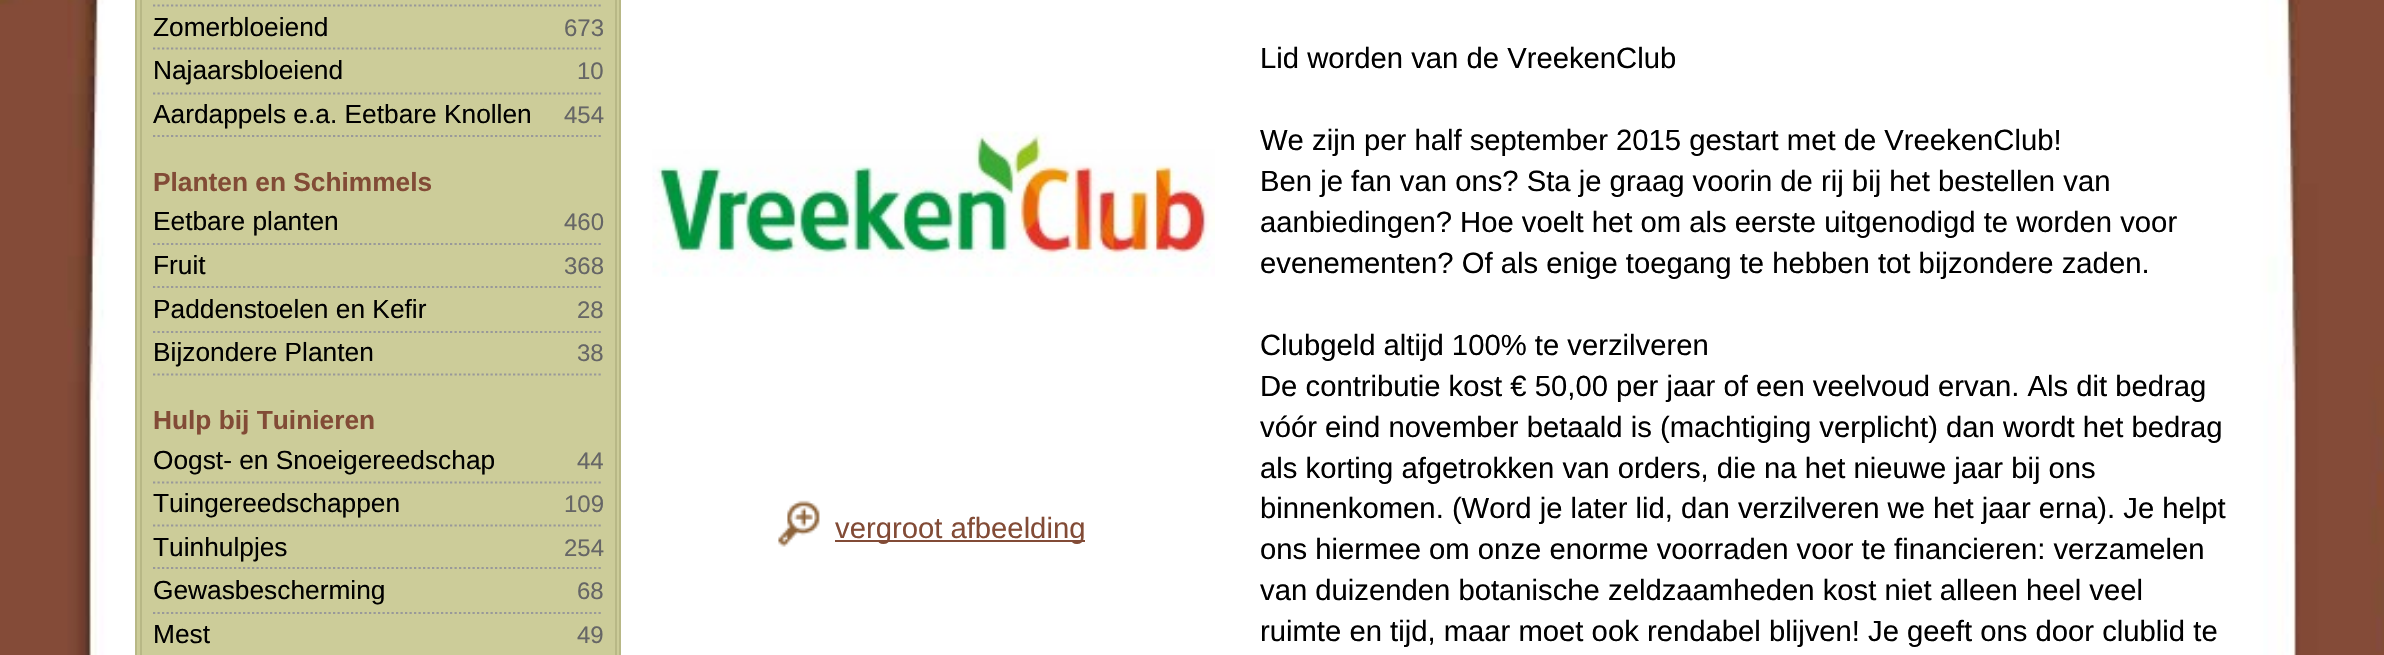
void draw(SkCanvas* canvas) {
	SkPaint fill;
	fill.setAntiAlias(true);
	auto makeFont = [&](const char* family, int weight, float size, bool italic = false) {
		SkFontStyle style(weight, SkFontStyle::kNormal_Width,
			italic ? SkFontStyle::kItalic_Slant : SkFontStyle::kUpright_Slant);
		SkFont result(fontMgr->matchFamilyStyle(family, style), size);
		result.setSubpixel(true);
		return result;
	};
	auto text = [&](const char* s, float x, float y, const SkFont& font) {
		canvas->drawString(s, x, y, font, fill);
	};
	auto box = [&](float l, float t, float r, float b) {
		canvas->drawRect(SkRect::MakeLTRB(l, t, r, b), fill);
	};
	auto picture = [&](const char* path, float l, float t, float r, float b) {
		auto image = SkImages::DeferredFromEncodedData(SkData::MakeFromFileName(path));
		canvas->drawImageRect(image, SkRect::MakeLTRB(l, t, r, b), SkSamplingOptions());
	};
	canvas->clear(0xFFFFFFFF);
	picture("image0.png", 0, 0, 2384, 655);
	fill.setColor(0xFFCCCC99);
	canvas->drawRect(SkRect::MakeLTRB(136, -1, 620, 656), fill);
	fill.setStyle(SkPaint::kStroke_Style);
	fill.setStrokeWidth(2);
	fill.setColor(0xFFB8B886);
	canvas->drawRect(SkRect::MakeLTRB(136, -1, 620, 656), fill);
	canvas->drawRect(SkRect::MakeLTRB(141, -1, 616, 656), fill);
	fill.setStrokeWidth(2.2f);
	fill.setColor(0xFF999999);
	fill.setPathEffect(SkDashPathEffect::Make({{2.25f, 2.25f}}, 0));
	canvas->drawPath(SkPathBuilder().moveTo(153, 5.5f).lineTo(603, 5.5f).detach(), fill);
	fill.setPathEffect(nullptr);
	fill.setPathEffect(SkDashPathEffect::Make({{2.25f, 2.25f}}, 0));
	canvas->drawPath(SkPathBuilder().moveTo(153, 48.5f).lineTo(603, 48.5f).detach(), fill);
	fill.setPathEffect(nullptr);
	fill.setPathEffect(SkDashPathEffect::Make({{2.25f, 2.25f}}, 0));
	canvas->drawPath(SkPathBuilder().moveTo(153, 93.5f).lineTo(603, 93.5f).detach(), fill);
	fill.setPathEffect(nullptr);
	fill.setPathEffect(SkDashPathEffect::Make({{2.25f, 2.25f}}, 0));
	canvas->drawPath(SkPathBuilder().moveTo(153, 136).lineTo(603, 136).detach(), fill);
	fill.setPathEffect(nullptr);
	fill.setPathEffect(SkDashPathEffect::Make({{2.25f, 2.25f}}, 0));
	canvas->drawPath(SkPathBuilder().moveTo(153, 244).lineTo(603, 244).detach(), fill);
	fill.setPathEffect(nullptr);
	fill.setPathEffect(SkDashPathEffect::Make({{2.25f, 2.25f}}, 0));
	canvas->drawPath(SkPathBuilder().moveTo(153, 287).lineTo(603, 287).detach(), fill);
	fill.setPathEffect(nullptr);
	fill.setPathEffect(SkDashPathEffect::Make({{2.25f, 2.25f}}, 0));
	canvas->drawPath(SkPathBuilder().moveTo(153, 332).lineTo(603, 332).detach(), fill);
	fill.setPathEffect(nullptr);
	fill.setPathEffect(SkDashPathEffect::Make({{2.25f, 2.25f}}, 0));
	canvas->drawPath(SkPathBuilder().moveTo(153, 374.5f).lineTo(603, 374.5f).detach(), fill);
	fill.setPathEffect(nullptr);
	fill.setPathEffect(SkDashPathEffect::Make({{2.25f, 2.25f}}, 0));
	canvas->drawPath(SkPathBuilder().moveTo(153, 482.5f).lineTo(603, 482.5f).detach(), fill);
	fill.setPathEffect(nullptr);
	fill.setPathEffect(SkDashPathEffect::Make({{2.25f, 2.25f}}, 0));
	canvas->drawPath(SkPathBuilder().moveTo(153, 525.5f).lineTo(603, 525.5f).detach(), fill);
	fill.setPathEffect(nullptr);
	fill.setPathEffect(SkDashPathEffect::Make({{2.25f, 2.25f}}, 0));
	canvas->drawPath(SkPathBuilder().moveTo(153, 568).lineTo(603, 568).detach(), fill);
	fill.setPathEffect(nullptr);
	fill.setPathEffect(SkDashPathEffect::Make({{2.25f, 2.25f}}, 0));
	canvas->drawPath(SkPathBuilder().moveTo(153, 613).lineTo(603, 613).detach(), fill);
	fill.setPathEffect(nullptr);
	fill.setPathEffect(SkDashPathEffect::Make({{2.25f, 2.25f}}, 0));
	canvas->drawPath(SkPathBuilder().moveTo(153, 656).lineTo(603, 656).detach(), fill);
	fill.setPathEffect(nullptr);
	picture("image1.png", 652, 131, 1215, 277);
	picture("image2.png", 778, 500, 820, 547);
	fill.setStyle(SkPaint::kFill_Style);
	fill.setColor(0xFF824B36);
	box(835, 540, 1085, 542);
	auto font1 = makeFont("Liberation Sans", 400, 26.3f);
	fill.setColor(0xFF000000);
	text("Zomerbloeiend", 153, 36, font1);
	auto font2 = makeFont("Liberation Sans", 400, 24);
	fill.setColor(0xFF666666);
	text("673", 564, 36, font2);
	fill.setColor(0xFF000000);
	text("Najaarsbloeiend", 153, 79, font1);
	fill.setColor(0xFF666666);
	text("10", 577, 79, font2);
	fill.setColor(0xFF000000);
	text("Aardappels e.a. Eetbare Knollen", 153, 123, font1);
	fill.setColor(0xFF666666);
	text("454", 564, 123, font2);
	auto font3 = makeFont("Liberation Sans", 700, 26.3f);
	fill.setColor(0xFF824B36);
	text("Planten en Schimmels", 153, 191, font3);
	fill.setColor(0xFF000000);
	text("Eetbare planten", 153, 230, font1);
	fill.setColor(0xFF666666);
	text("460", 564, 230, font2);
	fill.setColor(0xFF000000);
	text("Fruit", 153, 274, font1);
	fill.setColor(0xFF666666);
	text("368", 564, 274, font2);
	fill.setColor(0xFF000000);
	text("Paddenstoelen en Kefir", 153, 318, font1);
	fill.setColor(0xFF666666);
	text("28", 577, 318, font2);
	fill.setColor(0xFF000000);
	text("Bijzondere Planten", 153, 361, font1);
	fill.setColor(0xFF666666);
	text("38", 577, 361, font2);
	fill.setColor(0xFF824B36);
	text("Hulp bij Tuinieren", 153, 429, font3);
	fill.setColor(0xFF000000);
	text("Oogst- en Snoeigereedschap", 153, 469, font1);
	fill.setColor(0xFF666666);
	text("44", 577, 469, font2);
	fill.setColor(0xFF000000);
	text("Tuingereedschappen", 153, 512, font1);
	fill.setColor(0xFF666666);
	text("109", 564, 512, font2);
	fill.setColor(0xFF000000);
	text("Tuinhulpjes", 153, 556, font1);
	fill.setColor(0xFF666666);
	text("254", 564, 556, font2);
	fill.setColor(0xFF000000);
	text("Gewasbescherming", 153, 599, font1);
	fill.setColor(0xFF666666);
	text("68", 577, 599, font2);
	fill.setColor(0xFF000000);
	text("Mest", 153, 643, font1);
	fill.setColor(0xFF666666);
	text("49", 577, 643, font2);
	auto font4 = makeFont("Liberation Sans", 400, 29.25f);
	fill.setColor(0xFF824B36);
	text("vergroot afbeelding", 835, 538, font4);
	fill.setColor(0xFF000000);
	text("Lid worden van de VreekenClub", 1260, 68, font4);
	text("We zijn per half september 2015 gestart met de VreekenClub!", 1260, 150, font4);
	text("Ben je fan van ons? Sta je graag voorin de rij bij het bestellen van", 1260, 191, font4);
	text("aanbiedingen? Hoe voelt het om als eerste uitgenodigd te worden voor", 1260, 232, font4);
	text("evenementen? Of als enige toegang te hebben tot bijzondere zaden.", 1260, 273, font4);
	text("Clubgeld altijd 100% te verzilveren", 1260, 355, font4);
	text("De contributie kost € 50,00 per jaar of een veelvoud ervan. Als dit bedrag", 1260, 396, font4);
	text("vóór eind november betaald is (machtiging verplicht) dan wordt het bedrag", 1260, 437, font4);
	text("als korting afgetrokken van orders, die na het nieuwe jaar bij ons", 1260, 478, font4);
	text("binnenkomen. (Word je later lid, dan verzilveren we het jaar erna). Je helpt", 1260, 518, font4);
	text("ons hiermee om onze enorme voorraden voor te financieren: verzamelen", 1260, 559, font4);
	text("van duizenden botanische zeldzaamheden kost niet alleen heel veel", 1260, 600, font4);
	text("ruimte en tijd, maar moet ook rendabel blijven! Je geeft ons door clublid te", 1260, 641, font4);
}
